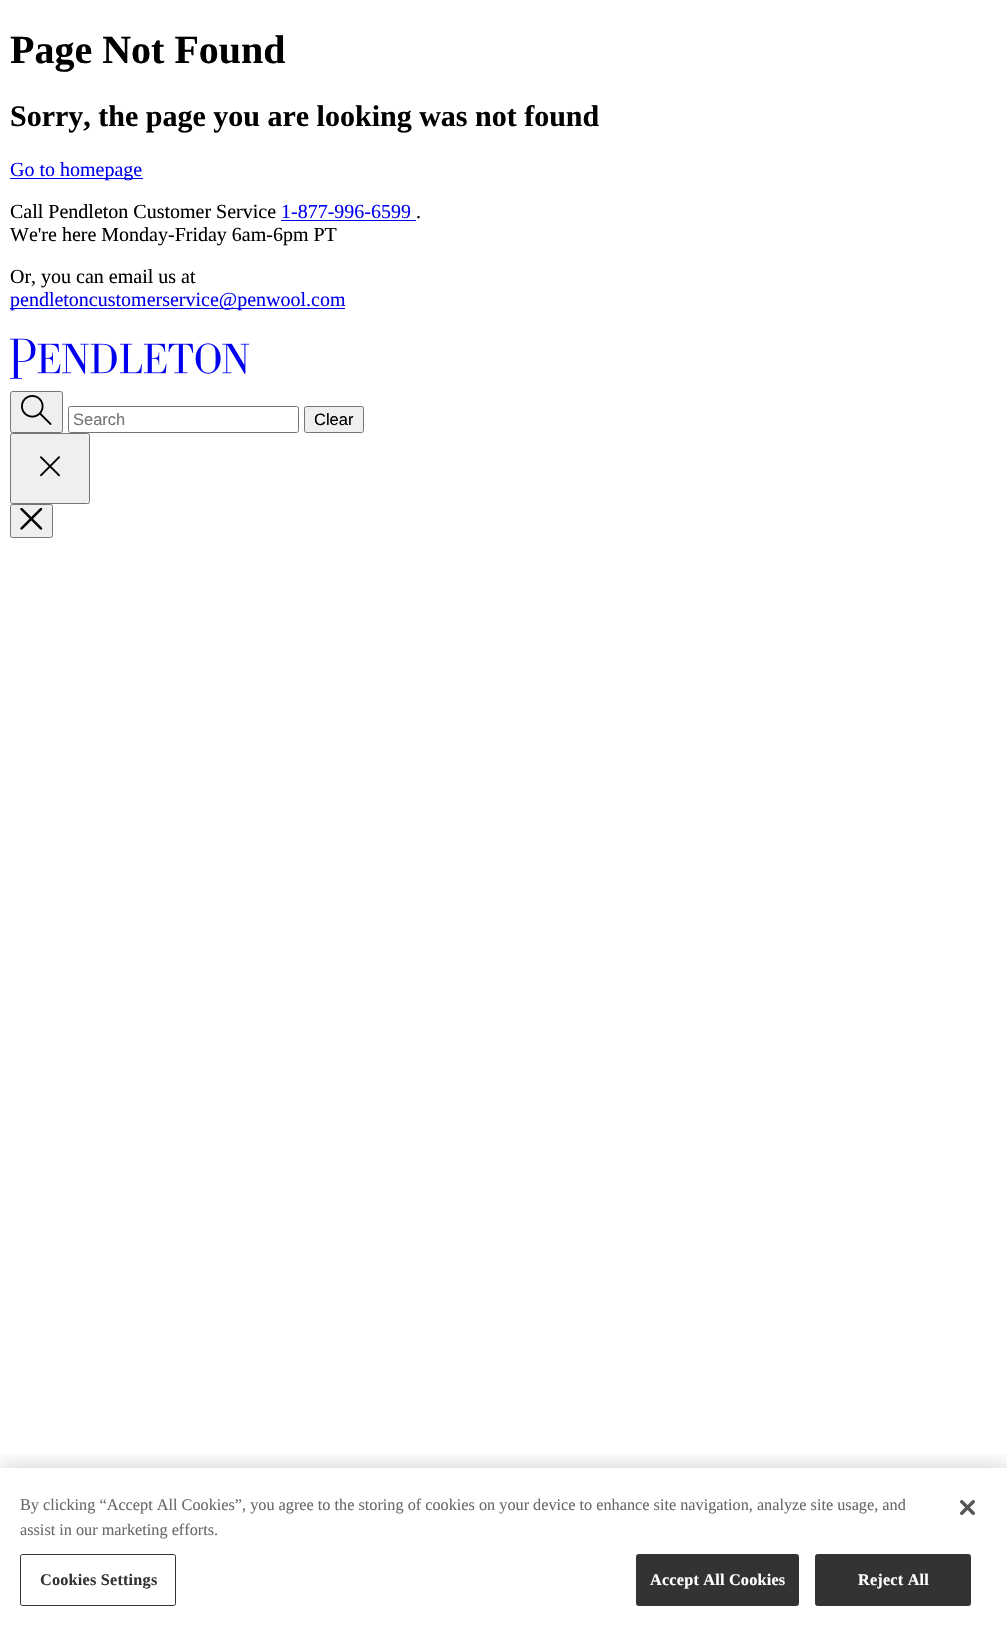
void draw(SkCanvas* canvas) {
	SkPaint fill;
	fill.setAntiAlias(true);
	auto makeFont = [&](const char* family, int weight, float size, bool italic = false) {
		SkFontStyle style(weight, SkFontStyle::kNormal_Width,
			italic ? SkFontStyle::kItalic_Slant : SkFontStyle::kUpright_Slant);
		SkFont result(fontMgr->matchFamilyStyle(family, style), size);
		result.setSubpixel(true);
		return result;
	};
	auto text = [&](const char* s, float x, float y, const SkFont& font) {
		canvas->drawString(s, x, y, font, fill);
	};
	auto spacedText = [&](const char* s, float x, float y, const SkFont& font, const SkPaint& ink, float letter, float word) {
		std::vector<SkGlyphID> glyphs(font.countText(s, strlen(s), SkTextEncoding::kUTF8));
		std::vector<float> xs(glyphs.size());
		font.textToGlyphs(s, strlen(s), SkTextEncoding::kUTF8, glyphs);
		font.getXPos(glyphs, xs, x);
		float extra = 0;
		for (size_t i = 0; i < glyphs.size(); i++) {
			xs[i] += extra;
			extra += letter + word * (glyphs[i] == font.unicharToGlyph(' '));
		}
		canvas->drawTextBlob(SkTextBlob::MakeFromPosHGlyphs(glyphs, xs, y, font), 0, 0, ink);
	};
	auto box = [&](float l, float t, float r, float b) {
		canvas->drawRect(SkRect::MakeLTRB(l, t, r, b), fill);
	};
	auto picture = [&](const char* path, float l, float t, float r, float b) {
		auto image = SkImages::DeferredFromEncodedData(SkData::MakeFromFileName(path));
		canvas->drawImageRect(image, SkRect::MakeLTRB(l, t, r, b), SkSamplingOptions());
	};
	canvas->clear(0xFFFFFFFF);
	fill.setColor(0xFF0000EE);
	box(10, 178, 143, 179);
	box(281, 220, 416, 221);
	box(10, 308, 345, 309);
	picture("image0.png", 10, 338, 250, 379);
	fill.setColor(0xFFEFEFEF);
	canvas->drawRoundRect(SkRect::MakeLTRB(10.5f, 391.5f, 62.5f, 432.5f), 2, 2, fill);
	fill.setStyle(SkPaint::kStroke_Style);
	fill.setStrokeWidth(1);
	fill.setColor(0xFF767676);
	canvas->drawRoundRect(SkRect::MakeLTRB(10.5f, 391.5f, 62.5f, 432.5f), 2, 2, fill);
	picture("image1.png", 21, 395, 52, 425);
	canvas->drawRoundRect(SkRect::MakeLTRB(68.5f, 406.5f, 298.5f, 432.5f), 2, 2, fill);
	fill.setStyle(SkPaint::kFill_Style);
	fill.setColor(0xFFEFEFEF);
	canvas->drawRoundRect(SkRect::MakeLTRB(304.5f, 406.5f, 363.5f, 432.5f), 2, 2, fill);
	fill.setStyle(SkPaint::kStroke_Style);
	fill.setColor(0xFF767676);
	canvas->drawRoundRect(SkRect::MakeLTRB(304.5f, 406.5f, 363.5f, 432.5f), 2, 2, fill);
	fill.setStyle(SkPaint::kFill_Style);
	fill.setColor(0xFFEFEFEF);
	canvas->drawRoundRect(SkRect::MakeLTRB(10.5f, 433.5f, 89.5f, 503.5f), 2, 2, fill);
	fill.setStyle(SkPaint::kStroke_Style);
	fill.setColor(0xFF767676);
	canvas->drawRoundRect(SkRect::MakeLTRB(10.5f, 433.5f, 89.5f, 503.5f), 2, 2, fill);
	picture("image2.png", 40, 456, 60, 477);
	fill.setStyle(SkPaint::kFill_Style);
	fill.setColor(0xFFEFEFEF);
	canvas->drawRoundRect(SkRect::MakeLTRB(10.5f, 504.5f, 52.5f, 537.5f), 2, 2, fill);
	fill.setStyle(SkPaint::kStroke_Style);
	fill.setColor(0xFF767676);
	canvas->drawRoundRect(SkRect::MakeLTRB(10.5f, 504.5f, 52.5f, 537.5f), 2, 2, fill);
	picture("image3.png", 20, 508, 43, 530);
	canvas->save();
	canvas->clipRect(SkRect::MakeLTRB(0, 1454, 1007, 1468));
	fill.setStyle(SkPaint::kFill_Style);
	fill.setColor(0x33000000);
	fill.setMaskFilter(SkMaskFilter::MakeBlur(kNormal_SkBlurStyle, 11));
	canvas->drawRect(SkRect::MakeLTRB(0, 1468, 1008, 1631), fill);
	fill.setMaskFilter(nullptr);
	canvas->restore();
	fill.setStyle(SkPaint::kStroke_Style);
	fill.setColor(0xFF333333);
	canvas->drawRoundRect(SkRect::MakeLTRB(20.5f, 1554.5f, 175.5f, 1605.5f), 2, 2, fill);
	fill.setStyle(SkPaint::kFill_Style);
	canvas->drawRoundRect(SkRect::MakeLTRB(636.5f, 1554.5f, 798.5f, 1605.5f), 2, 2, fill);
	fill.setStyle(SkPaint::kStroke_Style);
	canvas->drawRoundRect(SkRect::MakeLTRB(636.5f, 1554.5f, 798.5f, 1605.5f), 2, 2, fill);
	fill.setStyle(SkPaint::kFill_Style);
	canvas->drawRoundRect(SkRect::MakeLTRB(815.5f, 1554.5f, 970.5f, 1605.5f), 2, 2, fill);
	fill.setStyle(SkPaint::kStroke_Style);
	canvas->drawRoundRect(SkRect::MakeLTRB(815.5f, 1554.5f, 970.5f, 1605.5f), 2, 2, fill);
	picture("image4.png", 960, 1500, 975, 1515);
	auto font1 = makeFont("Liberation Serif", 700, 40);
	fill.setStyle(SkPaint::kFill_Style);
	fill.setColor(0xFF000000);
	text("Page Not Found", 10, 63, font1);
	auto font2 = makeFont("Liberation Serif", 700, 30);
	text("Sorry, the page you are looking was not found", 10, 126, font2);
	auto font3 = makeFont("Liberation Serif", 400, 20);
	fill.setColor(0xFF0000EE);
	text("Go to homepage", 10, 176, font3);
	fill.setColor(0xFF000000);
	text("Call Pendleton Customer Service", 10, 218, font3);
	fill.setColor(0xFF0000EE);
	text("1-877-996-6599", 281, 218, font3);
	fill.setColor(0xFF000000);
	text(".", 416, 218, font3);
	text("We're here Monday-Friday 6am-6pm PT", 10, 241, font3);
	text("Or, you can email us at", 10, 283, font3);
	fill.setColor(0xFF0000EE);
	text("pendletoncustomerservice@penwool.com", 10, 306, font3);
	auto font4 = makeFont("Liberation Sans", 400, 16.5f);
	fill.setColor(0xFF757575);
	text("Search", 73, 425, font4);
	fill.setColor(0xFF000000);
	text("Clear", 314, 425, font4);
	auto font5 = makeFont("Liberation Serif", 400, 16.25f);
	fill.setColor(0xFF696969);
	text("By clicking “Accept All Cookies”, you agree to the storing of cookies on your device to enhance site navigation, analyze site usage, and", 20, 1510, font5);
	text("assist in our marketing efforts.", 20, 1535, font5);
	auto font6 = makeFont("Liberation Serif", 700, 16.25f);
	fill.setColor(0xFF333333);
	spacedText("Cookies Settings", 40, 1585, font6, fill, 0.2f, 0);
	fill.setColor(0xFFFFFFFF);
	spacedText("Accept All Cookies", 650, 1585, font6, fill, 0.2f, 0);
	spacedText("Reject All", 858, 1585, font6, fill, 0.2f, 0);
}
